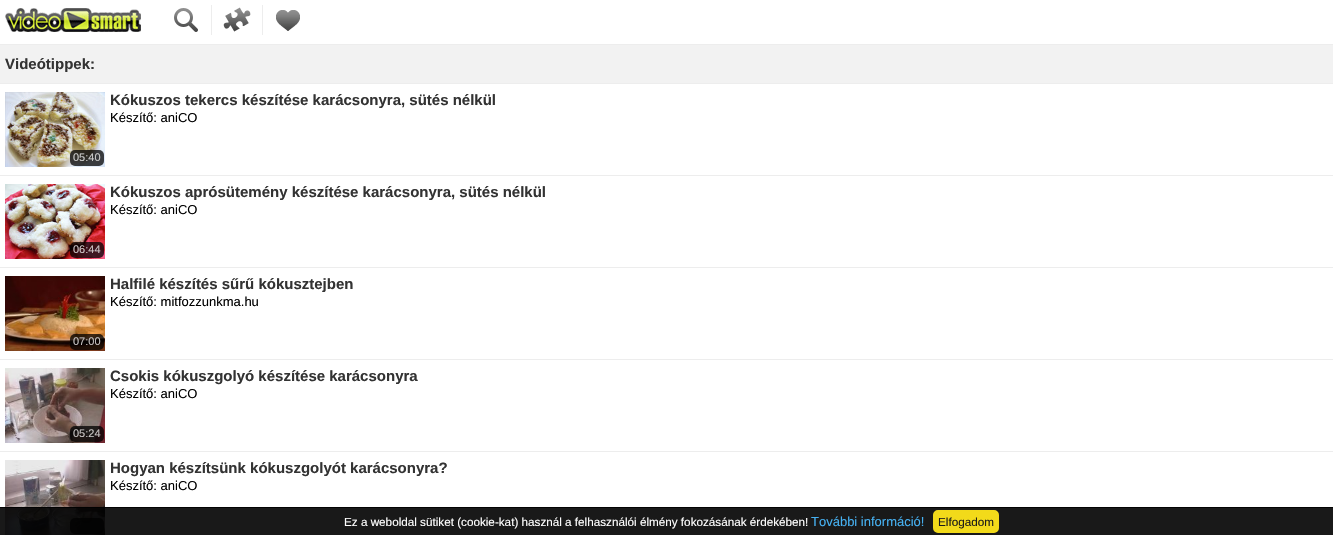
void draw(SkCanvas* canvas) {
	SkPaint fill;
	fill.setAntiAlias(true);
	auto makeFont = [&](const char* family, int weight, float size, bool italic = false) {
		SkFontStyle style(weight, SkFontStyle::kNormal_Width,
			italic ? SkFontStyle::kItalic_Slant : SkFontStyle::kUpright_Slant);
		SkFont result(fontMgr->matchFamilyStyle(family, style), size);
		result.setSubpixel(true);
		return result;
	};
	auto text = [&](const char* s, float x, float y, const SkFont& font) {
		canvas->drawString(s, x, y, font, fill);
	};
	auto box = [&](float l, float t, float r, float b) {
		canvas->drawRect(SkRect::MakeLTRB(l, t, r, b), fill);
	};
	auto roundBox = [&](float l, float t, float r, float b, float radius) {
		canvas->drawRoundRect(SkRect::MakeLTRB(l, t, r, b), radius, radius, fill);
	};
	auto picture = [&](const char* path, float l, float t, float r, float b) {
		auto image = SkImages::DeferredFromEncodedData(SkData::MakeFromFileName(path));
		canvas->drawImageRect(image, SkRect::MakeLTRB(l, t, r, b), SkSamplingOptions());
	};
	canvas->clear(0xFFFFFFFF);
	fill.setColor(0xFFEDEDED);
	box(0, 44, 1333, 45);
	picture("image0.png", 5, 8, 141, 32);
	picture("image1.png", 174, 8, 198, 32);
	box(211, 5, 212, 35);
	picture("image2.png", 223, 7, 251, 32);
	box(262, 5, 263, 35);
	picture("image3.png", 276, 10, 300, 31);
	fill.setColor(0xFFF2F2F2);
	box(0, 45, 1333, 83);
	fill.setColor(0xFFEDEDED);
	box(0, 83, 1333, 84);
	box(0, 175, 1333, 176);
	picture("image4.png", 5, 92, 105, 167);
	fill.setColor(0xBF000000);
	roundBox(70, 150, 104, 166, 5);
	fill.setColor(0xFFEDEDED);
	box(0, 267, 1333, 268);
	picture("image5.png", 5, 184, 105, 259);
	fill.setColor(0xBF000000);
	roundBox(70, 242, 104, 258, 5);
	fill.setColor(0xFFEDEDED);
	box(0, 359, 1333, 360);
	picture("image6.png", 5, 276, 105, 351);
	fill.setColor(0xBF000000);
	roundBox(70, 334, 104, 350, 5);
	fill.setColor(0xFFEDEDED);
	box(0, 451, 1333, 452);
	picture("image7.png", 5, 368, 105, 443);
	fill.setColor(0xBF000000);
	roundBox(70, 426, 104, 442, 5);
	picture("image8.png", 5, 460, 105, 535);
	roundBox(70, 518, 104, 534, 5);
	fill.setColor(0xE6000000);
	box(0, 507, 1333, 535);
	box(0, 507, 1333, 508);
	fill.setColor(0xFFF2DA1A);
	canvas->drawRoundRect(SkRect::MakeLTRB(934, 511, 998, 532), 4, 4, fill);
	fill.setStyle(SkPaint::kStroke_Style);
	fill.setStrokeWidth(2);
	canvas->drawRoundRect(SkRect::MakeLTRB(934, 511, 998, 532), 4, 4, fill);
	auto font1 = makeFont("Liberation Sans", 700, 15);
	fill.setStyle(SkPaint::kFill_Style);
	fill.setColor(0xFF333333);
	text("Videótippek:", 5, 69, font1);
	text("Kókuszos tekercs készítése karácsonyra, sütés nélkül", 110, 105, font1);
	auto font2 = makeFont("Liberation Sans", 400, 13);
	fill.setColor(0xFF000000);
	text("Készítő: aniCO", 110, 122, font2);
	auto font3 = makeFont("Liberation Sans", 400, 11);
	fill.setColor(0xFFCCCCCB);
	text("05:40", 73, 161, font3);
	fill.setColor(0xFF333333);
	text("Kókuszos aprósütemény készítése karácsonyra, sütés nélkül", 110, 197, font1);
	fill.setColor(0xFF000000);
	text("Készítő: aniCO", 110, 214, font2);
	fill.setColor(0xFFCCC3C4);
	text("06:44", 73, 253, font3);
	fill.setColor(0xFF333333);
	text("Halfilé készítés sűrű kókusztejben", 110, 289, font1);
	fill.setColor(0xFF000000);
	text("Készítő: mitfozzunkma.hu", 110, 306, font2);
	fill.setColor(0xFFC6C3C2);
	text("07:00", 73, 345, font3);
	fill.setColor(0xFF333333);
	text("Csokis kókuszgolyó készítése karácsonyra", 110, 381, font1);
	fill.setColor(0xFF000000);
	text("Készítő: aniCO", 110, 398, font2);
	fill.setColor(0xFFC6C3C2);
	text("05:24", 73, 437, font3);
	fill.setColor(0xFF333333);
	text("Hogyan készítsünk kókuszgolyót karácsonyra?", 110, 473, font1);
	fill.setColor(0xFF000000);
	text("Készítő: aniCO", 110, 490, font2);
	auto font4 = makeFont("Liberation Sans", 400, 11.7f);
	fill.setColor(0xFFFFFFFF);
	text("Ez a weboldal sütiket (cookie-kat) használ a felhasználói élmény fokozásának érdekében!", 344, 526, font4);
	fill.setColor(0xFF46B1F2);
	text("További információ!", 811, 526, font2);
	fill.setColor(0xFF1A1A1A);
	text("Elfogadom", 938, 526, font4);
}
